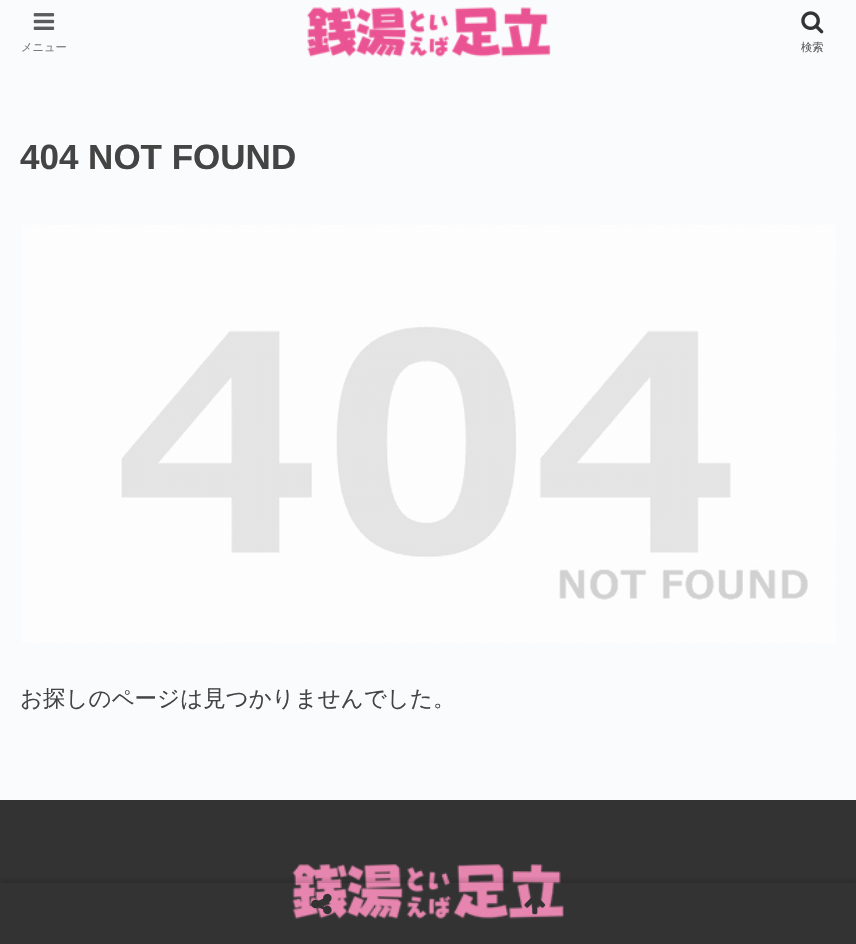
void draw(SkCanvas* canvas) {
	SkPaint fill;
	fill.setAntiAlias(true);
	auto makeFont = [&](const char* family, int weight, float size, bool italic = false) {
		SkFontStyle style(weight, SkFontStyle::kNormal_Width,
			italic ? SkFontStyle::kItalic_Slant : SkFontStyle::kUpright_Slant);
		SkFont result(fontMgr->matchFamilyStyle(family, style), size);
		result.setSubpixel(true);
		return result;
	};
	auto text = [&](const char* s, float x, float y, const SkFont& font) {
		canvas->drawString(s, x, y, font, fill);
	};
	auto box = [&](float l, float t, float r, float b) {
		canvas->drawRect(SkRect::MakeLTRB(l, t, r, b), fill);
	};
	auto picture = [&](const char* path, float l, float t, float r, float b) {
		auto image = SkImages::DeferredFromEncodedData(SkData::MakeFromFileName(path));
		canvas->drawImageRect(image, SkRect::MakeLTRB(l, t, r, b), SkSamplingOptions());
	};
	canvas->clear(0xFFFAFBFC);
	picture("image0.png", 33, 13, 55, 30);
	picture("image1.png", 307, 7, 551, 57);
	picture("image2.png", 801, 11, 824, 34);
	picture("image3.png", 22, 225, 836, 643);
	fill.setColor(0xFF333333);
	box(0, 800, 856, 944);
	picture("image4.png", 292, 864, 564, 919);
	canvas->save();
	canvas->clipRect(SkRect::MakeLTRB(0, 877, 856, 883));
	fill.setColor(0x26000000);
	fill.setMaskFilter(SkMaskFilter::MakeBlur(kNormal_SkBlurStyle, 3));
	canvas->drawRect(SkRect::MakeLTRB(0, 880, 856, 943), fill);
	fill.setMaskFilter(nullptr);
	canvas->restore();
	picture("image5.png", 311, 893, 332, 915);
	picture("image6.png", 524, 897, 546, 915);
	auto font1 = makeFont("WenQuanYi Zen Hei", 500, 11.25f);
	fill.setColor(0xFF7B7B7B);
	text("メニュー", 21, 51, font1);
	fill.setColor(0xFF5B5B5B);
	text("検索", 801, 51, font1);
	auto font2 = makeFont("Liberation Sans", 700, 35);
	fill.setColor(0xFF444444);
	text("404 NOT FOUND", 20, 169, font2);
	auto font3 = makeFont("WenQuanYi Zen Hei", 500, 22.5f);
	text("お探しのページは見つかりませんでした。", 20, 706, font3);
}
